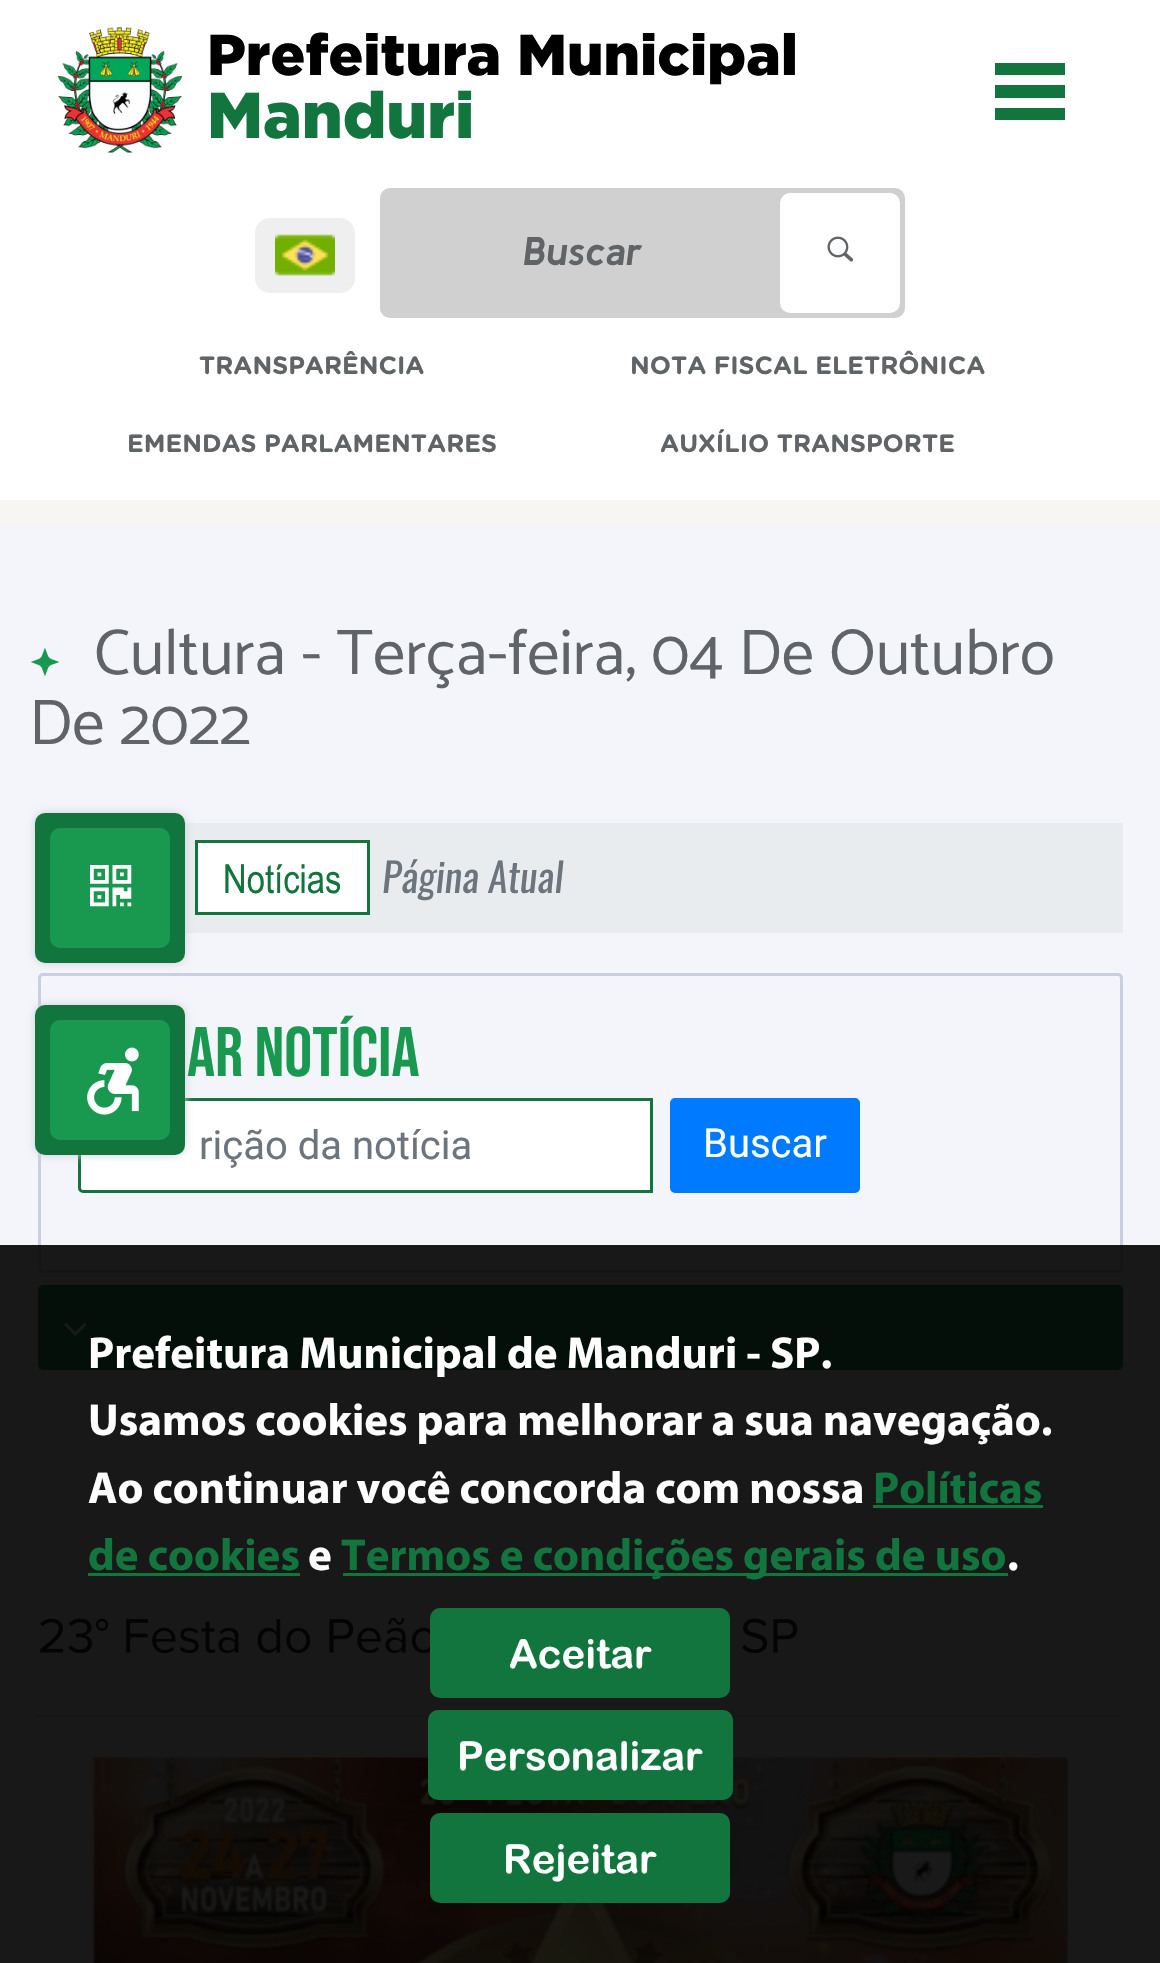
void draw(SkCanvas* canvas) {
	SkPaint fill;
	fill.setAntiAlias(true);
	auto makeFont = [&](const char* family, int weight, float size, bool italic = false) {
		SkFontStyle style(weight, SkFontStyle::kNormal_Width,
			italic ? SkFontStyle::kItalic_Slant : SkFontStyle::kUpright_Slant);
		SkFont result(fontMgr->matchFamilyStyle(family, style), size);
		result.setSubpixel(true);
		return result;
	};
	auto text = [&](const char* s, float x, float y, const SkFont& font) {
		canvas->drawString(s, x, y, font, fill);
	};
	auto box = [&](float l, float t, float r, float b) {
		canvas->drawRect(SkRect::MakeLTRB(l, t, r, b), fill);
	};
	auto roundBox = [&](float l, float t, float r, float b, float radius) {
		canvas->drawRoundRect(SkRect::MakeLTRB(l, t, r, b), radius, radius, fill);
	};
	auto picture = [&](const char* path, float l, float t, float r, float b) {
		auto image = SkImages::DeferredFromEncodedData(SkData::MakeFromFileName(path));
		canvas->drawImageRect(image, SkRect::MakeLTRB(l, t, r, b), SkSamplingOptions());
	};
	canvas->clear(0xFFF7F6F2);
	fill.setColor(0xFFFFFFFF);
	box(0, 0, 1160, 500);
	picture("image0.png", 57, 27, 183, 153);
	fill.setColor(0xFF12753E);
	box(995, 63, 1065, 75);
	box(995, 85, 1065, 98);
	box(995, 108, 1065, 120);
	fill.setColor(0xFFEFEFEF);
	roundBox(255, 218, 355, 293, 15);
	picture("image1.png", 275, 234, 335, 276);
	fill.setColor(0xFFD0D0D0);
	roundBox(380, 188, 905, 318, 10);
	fill.setColor(0xFFFFFFFF);
	roundBox(780, 193, 900, 313, 10);
	picture("image2.png", 827, 236, 854, 262);
	fill.setColor(0xFFF4F5FA);
	box(0, 525, 1160, 1963);
	picture("image3.png", 30, 647, 59, 677);
	fill.setColor(0xFFE9ECEF);
	box(185, 823, 1123, 933);
	fill.setColor(0xFFFFFFFF);
	canvas->drawRect(SkRect::MakeLTRB(196.5f, 841.5f, 368.5f, 913.5f), fill);
	fill.setStyle(SkPaint::kStroke_Style);
	fill.setStrokeWidth(3);
	fill.setColor(0xFF12753E);
	canvas->drawRect(SkRect::MakeLTRB(196.5f, 841.5f, 368.5f, 913.5f), fill);
	fill.setColor(0xFFC9CEE1);
	canvas->drawRoundRect(SkRect::MakeLTRB(39.5f, 974.5f, 1121.5f, 1271.5f), 3.5f, 3.5f, fill);
	fill.setStyle(SkPaint::kFill_Style);
	fill.setColor(0xFFFFFFFF);
	canvas->drawPath(SkPathBuilder().moveTo(83, 1099.5f).lineTo(651.5f, 1099.5f).lineTo(651.5f, 1191.5f).lineTo(83, 1191.5f).cubicTo(81, 1191.5f, 79.5f, 1190, 79.5f, 1188).lineTo(79.5f, 1103).cubicTo(79.5f, 1101, 81, 1099.5f, 83, 1099.5f).close().detach(), fill);
	fill.setStyle(SkPaint::kStroke_Style);
	fill.setColor(0xFF12753E);
	canvas->drawPath(SkPathBuilder().moveTo(83, 1099.5f).lineTo(651.5f, 1099.5f).lineTo(651.5f, 1191.5f).lineTo(83, 1191.5f).cubicTo(81, 1191.5f, 79.5f, 1190, 79.5f, 1188).lineTo(79.5f, 1103).cubicTo(79.5f, 1101, 81, 1099.5f, 83, 1099.5f).close().detach(), fill);
	fill.setStyle(SkPaint::kFill_Style);
	fill.setColor(0xFF007BFF);
	canvas->drawRoundRect(SkRect::MakeLTRB(671.5f, 1099.5f, 858.5f, 1191.5f), 3.5f, 3.5f, fill);
	fill.setStyle(SkPaint::kStroke_Style);
	canvas->drawRoundRect(SkRect::MakeLTRB(671.5f, 1099.5f, 858.5f, 1191.5f), 3.5f, 3.5f, fill);
	fill.setStyle(SkPaint::kFill_Style);
	fill.setColor(0xFF199950);
	roundBox(38, 1285, 1123, 1370, 5);
	picture("image4.png", 64, 1322, 87, 1336);
	picture("image5.png", 40, 1617, 798, 1654);
	fill.setColor(0xFFDCDDE1);
	box(38, 1715, 1123, 1718);
	picture("image6.png", 92, 1757, 1068, 1963);
	fill.setColor(0xE6000000);
	box(0, 1245, 1160, 1963);
	fill.setColor(0xFF12753E);
	box(873, 1505, 1043, 1508);
	box(88, 1573, 300, 1576);
	box(343, 1573, 1008, 1576);
	roundBox(430, 1608, 730, 1698, 10);
	roundBox(428, 1710, 733, 1800, 10);
	roundBox(430, 1813, 730, 1903, 10);
	canvas->save();
	canvas->clipPath(SkPathBuilder(SkPathFillType::kEvenOdd).moveTo(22, 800).lineTo(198, 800).lineTo(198, 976).lineTo(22, 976).close().moveTo(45, 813).lineTo(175, 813).cubicTo(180.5f, 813, 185, 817.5f, 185, 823).lineTo(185, 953).cubicTo(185, 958.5f, 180.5f, 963, 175, 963).lineTo(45, 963).cubicTo(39.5f, 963, 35, 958.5f, 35, 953).lineTo(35, 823).cubicTo(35, 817.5f, 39.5f, 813, 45, 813).close().detach(), true);
	fill.setColor(0xFFCBD0D6);
	fill.setMaskFilter(SkMaskFilter::MakeBlur(kNormal_SkBlurStyle, 4));
	canvas->drawRoundRect(SkRect::MakeLTRB(35, 813, 185, 963), 10, 10, fill);
	fill.setMaskFilter(nullptr);
	canvas->restore();
	fill.setColor(0xFF12753E);
	roundBox(35, 813, 185, 963, 10);
	fill.setColor(0xFF199950);
	roundBox(50, 828, 170, 948, 10);
	picture("image7.png", 90, 865, 132, 907);
	fill.setColor(0xFFCBD0D6);
	fill.setMaskFilter(SkMaskFilter::MakeBlur(kNormal_SkBlurStyle, 4));
	canvas->drawRoundRect(SkRect::MakeLTRB(35, 1005, 185, 1155), 10, 10, fill);
	fill.setMaskFilter(nullptr);
	fill.setColor(0xFF12753E);
	roundBox(35, 1005, 185, 1155, 10);
	fill.setColor(0xFF199950);
	roundBox(50, 1020, 170, 1140, 10);
	picture("image8.png", 87, 1047, 139, 1115);
	auto font1 = makeFont("Gotham", 900, 57.6f);
	fill.setColor(0xFF000000);
	text("Prefeitura Municipal", 207, 75, font1);
	auto font2 = makeFont("Gotham", 900, 64.6f);
	fill.setColor(0xFF12753E);
	text("Manduri", 207, 138, font2);
	auto font3 = makeFont("Kulim Park", 700, 40, true);
	fill.setColor(0xFF606466);
	text("Buscar", 523, 265, font3);
	auto font4 = makeFont("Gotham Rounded", 700, 25);
	text("TRANSPARÊNCIA", 199, 374, font4);
	text("NOTA FISCAL ELETRÔNICA", 630, 374, font4);
	text("EMENDAS PARLAMENTARES", 127, 452, font4);
	text("AUXÍLIO TRANSPORTE", 660, 452, font4);
	auto font5 = makeFont("Catamaran", 400, 64.6f);
	text("Cultura - Terça-feira, 04 De Outubro", 94, 674, font5);
	text("De 2022", 29, 744, font5);
	auto font6 = makeFont("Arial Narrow", 400, 40);
	fill.setColor(0xFF12753E);
	text("Notícias", 223, 893, font6);
	auto font7 = makeFont("Oswald", 400, 40, true);
	fill.setColor(0xFF6C757D);
	text("Página Atual", 382, 893, font7);
	auto font8 = makeFont("Bebas Neue", 400, 70);
	fill.setColor(0xFF199950);
	text("ar Notícia", 187, 1076, font8);
	auto font9 = makeFont("Roboto", 400, 40);
	fill.setColor(0xFF6C757D);
	text("rição da notícia", 199, 1159, font9);
	fill.setColor(0xFFFFFFFF);
	text("Buscar", 703, 1157, font9);
	auto font10 = makeFont("Myriad", 700, 45);
	text("Prefeitura Municipal de Manduri - SP.", 88, 1368, font10);
	text("Usamos cookies para melhorar a sua navegação.", 88, 1435, font10);
	text("Ao continuar você concorda com nossa", 88, 1503, font10);
	fill.setColor(0xFF12753E);
	text("Políticas", 873, 1503, font10);
	text("de cookies", 88, 1570, font10);
	fill.setColor(0xFFFFFFFF);
	text("e", 308, 1570, font10);
	fill.setColor(0xFF12753E);
	text("Termos e condições gerais de uso", 341, 1570, font10);
	fill.setColor(0xFFFFFFFF);
	text(".", 1007, 1570, font10);
	auto font11 = makeFont("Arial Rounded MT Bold", 700, 40);
	text("Aceitar", 509, 1668, font11);
	text("Personalizar", 457, 1770, font11);
	text("Rejeitar", 503, 1873, font11);
}
